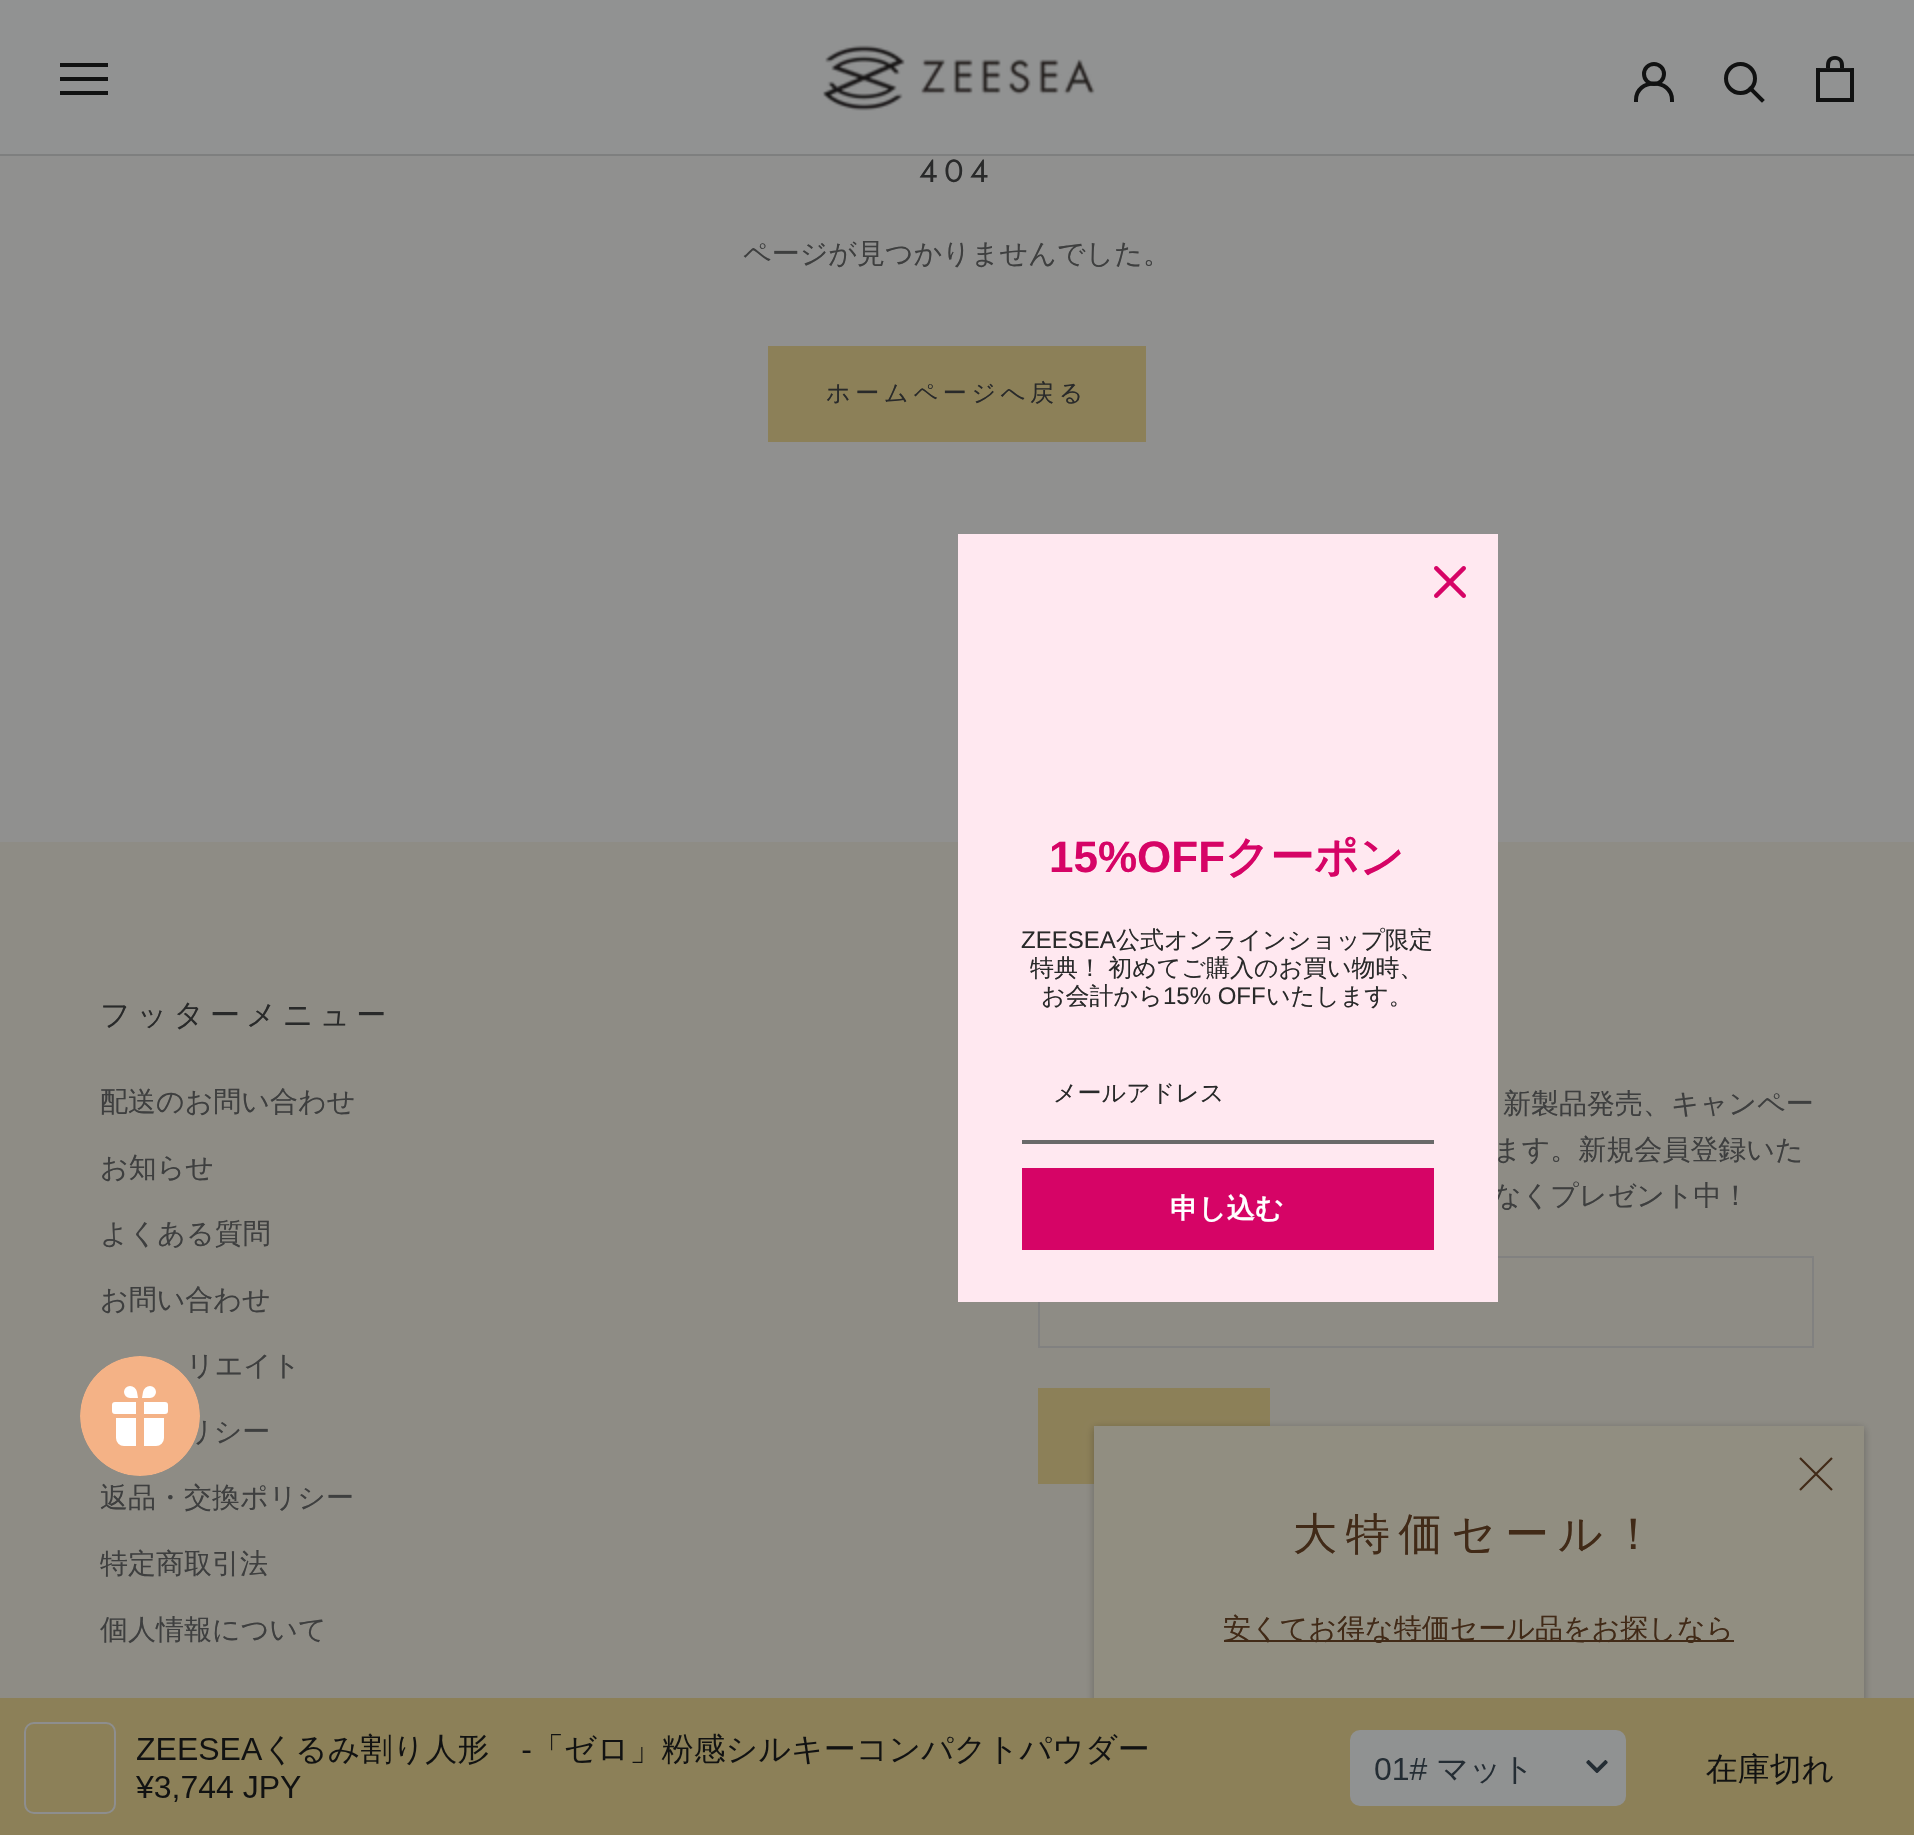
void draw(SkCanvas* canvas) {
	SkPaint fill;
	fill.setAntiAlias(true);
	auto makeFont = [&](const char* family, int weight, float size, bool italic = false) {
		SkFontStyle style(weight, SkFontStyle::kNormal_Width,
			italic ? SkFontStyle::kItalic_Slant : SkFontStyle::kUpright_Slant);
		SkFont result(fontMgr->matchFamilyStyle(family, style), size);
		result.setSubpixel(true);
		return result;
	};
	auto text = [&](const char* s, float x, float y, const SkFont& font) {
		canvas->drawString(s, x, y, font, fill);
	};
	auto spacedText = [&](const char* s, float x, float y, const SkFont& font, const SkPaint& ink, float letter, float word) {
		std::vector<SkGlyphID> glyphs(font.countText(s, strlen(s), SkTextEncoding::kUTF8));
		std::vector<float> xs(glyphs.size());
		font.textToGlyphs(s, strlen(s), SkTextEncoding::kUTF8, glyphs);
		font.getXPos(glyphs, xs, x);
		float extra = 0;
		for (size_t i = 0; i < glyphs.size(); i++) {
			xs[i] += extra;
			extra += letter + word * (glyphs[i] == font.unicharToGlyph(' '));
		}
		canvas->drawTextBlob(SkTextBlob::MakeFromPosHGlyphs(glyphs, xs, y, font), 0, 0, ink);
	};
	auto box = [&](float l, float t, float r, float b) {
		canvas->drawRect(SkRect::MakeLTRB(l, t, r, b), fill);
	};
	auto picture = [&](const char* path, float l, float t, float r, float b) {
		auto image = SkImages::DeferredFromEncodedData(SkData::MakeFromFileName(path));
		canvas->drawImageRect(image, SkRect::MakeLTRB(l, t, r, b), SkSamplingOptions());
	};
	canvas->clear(0xFF90908F);
	fill.setColor(0xFF919292);
	box(0, 0, 1914, 154);
	fill.setColor(0xFF7E7F7F);
	box(0, 154, 1914, 156);
	fill.setColor(0xFF111212);
	canvas->drawPath(SkPathBuilder().moveTo(60, 95).lineTo(60, 91).lineTo(108, 91).lineTo(108, 95).close().moveTo(60, 77).lineTo(108, 77).lineTo(108, 81).lineTo(60, 81).close().moveTo(60, 63).lineTo(108, 63).lineTo(108, 67).lineTo(60, 67).close().detach(), fill);
	picture("image0.png", 822, 45, 1095, 111);
	fill.setStyle(SkPaint::kStroke_Style);
	fill.setStrokeWidth(4);
	fill.setStrokeCap(SkPaint::kSquare_Cap);
	canvas->drawPath(SkPathBuilder().moveTo(1636, 100).cubicTo(1636, 78, 1672, 78, 1672, 100).detach(), fill);
	fill.setStrokeCap(SkPaint::kButt_Cap);
	canvas->drawCircle(1654, 74, 10, fill);
	fill.setStrokeCap(SkPaint::kSquare_Cap);
	canvas->drawPath(SkPathBuilder().moveTo(1762, 100).lineTo(1750.5f, 88.5f).detach(), fill);
	fill.setStrokeCap(SkPaint::kButt_Cap);
	canvas->drawCircle(1740.5f, 78.5f, 14.5f, fill);
	picture("image1.png", 1816, 56, 1854, 102);
	fill.setStrokeWidth(2);
	fill.setColor(0xFF8C8058);
	canvas->drawRect(SkRect::MakeLTRB(769, 347, 1145, 441), fill);
	fill.setStyle(SkPaint::kFill_Style);
	box(770, 348, 1144, 440);
	fill.setColor(0xFF8E8C85);
	box(0, 842, 1914, 1698);
	fill.setStyle(SkPaint::kStroke_Style);
	fill.setColor(0xFF818180);
	canvas->drawRect(SkRect::MakeLTRB(1039, 1257, 1813, 1347), fill);
	fill.setColor(0xFF8C8058);
	canvas->drawRect(SkRect::MakeLTRB(1039, 1389, 1269, 1483), fill);
	fill.setStyle(SkPaint::kFill_Style);
	box(1040, 1390, 1268, 1482);
	fill.setColor(0x4D111212);
	fill.setMaskFilter(SkMaskFilter::MakeBlur(kNormal_SkBlurStyle, 4));
	canvas->drawRect(SkRect::MakeLTRB(1094, 1428, 1864, 1788), fill);
	fill.setMaskFilter(nullptr);
	fill.setColor(0xFF918E81);
	box(1094, 1426, 1864, 1698);
	fill.setStyle(SkPaint::kStroke_Style);
	fill.setStrokeWidth(2.2f);
	fill.setColor(0xFF412A17);
	canvas->drawPath(SkPathBuilder().moveTo(1832, 1458).lineTo(1800, 1490).moveTo(1832, 1490).lineTo(1800, 1458).detach(), fill);
	fill.setStyle(SkPaint::kFill_Style);
	box(1224, 1640, 1734, 1642);
	picture("image4.png", 0, 1698, 1914, 1835);
	auto font1 = makeFont("Jost", 400, 32);
	fill.setColor(0xFF292A2A);
	spacedText("404", 919, 182, font1, fill, 6.5f, 0);
	auto font2 = makeFont("WenQuanYi Zen Hei", 500, 28);
	fill.setColor(0xFF3E3F3F);
	text("ページが見つかりませんでした。", 743, 263, font2);
	auto font3 = makeFont("WenQuanYi Zen Hei", 500, 24);
	fill.setColor(0xFF292A2A);
	spacedText("ホームページへ戻る", 826, 401, font3, fill, 4.75f, 0);
	auto font4 = makeFont("WenQuanYi Zen Hei", 500, 30);
	spacedText("フッターメニュー", 100, 1025, font4, fill, 6, 0);
	fill.setColor(0xFF3E3F3F);
	text("配送のお問い合わせ", 100, 1111, font2);
	text("お知らせ", 100, 1177, font2);
	text("よくある質問", 100, 1243, font2);
	text("お問い合わせ", 100, 1309, font2);
	text("リエイト", 186, 1375, font2);
	text("リシー", 185, 1441, font2);
	text("返品・交換ポリシー", 100, 1507, font2);
	text("特定商取引法", 100, 1573, font2);
	text("個人情報について", 100, 1639, font2);
	text("新製品発売、キャンペー", 1503, 1113, font2);
	text("ます。新規会員登録いた", 1493, 1159, font2);
	text("なくプレゼント中！", 1493, 1205, font2);
	fill.setColor(0xFFFFE8F0);
	box(958, 534, 1498, 1302);
	picture("image2.png", 1434, 566, 1466, 598);
	auto font5 = makeFont("Liberation Sans", 700, 44);
	fill.setColor(0xFFD60466);
	text("15%OFF", 1049, 872, font5);
	auto font6 = makeFont("WenQuanYi Zen Hei", 700, 44);
	text("クーポン", 1225, 872, font6);
	auto font7 = makeFont("Liberation Sans", 400, 24);
	fill.setColor(0xFF292A2A);
	text("ZEESEA", 1021, 948, font7);
	text("公式オンラインショップ限定", 1116, 948, font3);
	spacedText("特典！ 初めてご購入のお買い物時、", 1030, 976, font3, fill, 0, -1);
	text("お会計から", 1041, 1004, font3);
	text("15% OFF", 1163, 1004, font7);
	text("いたします。", 1266, 1004, font3);
	fill.setColor(0xFF696969);
	box(1022, 1140, 1434, 1144);
	fill.setColor(0xFF292A2A);
	text("メールアドレス", 1053, 1101, font3);
	fill.setColor(0xFFD60466);
	box(1022, 1168, 1434, 1250);
	auto font8 = makeFont("WenQuanYi Zen Hei", 700, 28);
	fill.setColor(0xFFFFFFFF);
	text("申し込む", 1170, 1218, font8);
	picture("image3.png", 80, 1356, 200, 1476);
	auto font9 = makeFont("WenQuanYi Zen Hei", 500, 44);
	fill.setColor(0xFF412A17);
	spacedText("大特価セール！", 1293, 1549, font9, fill, 8.75f, 0);
	text("安くてお得な特価セール品をお探しなら", 1223, 1638, font2);
}
